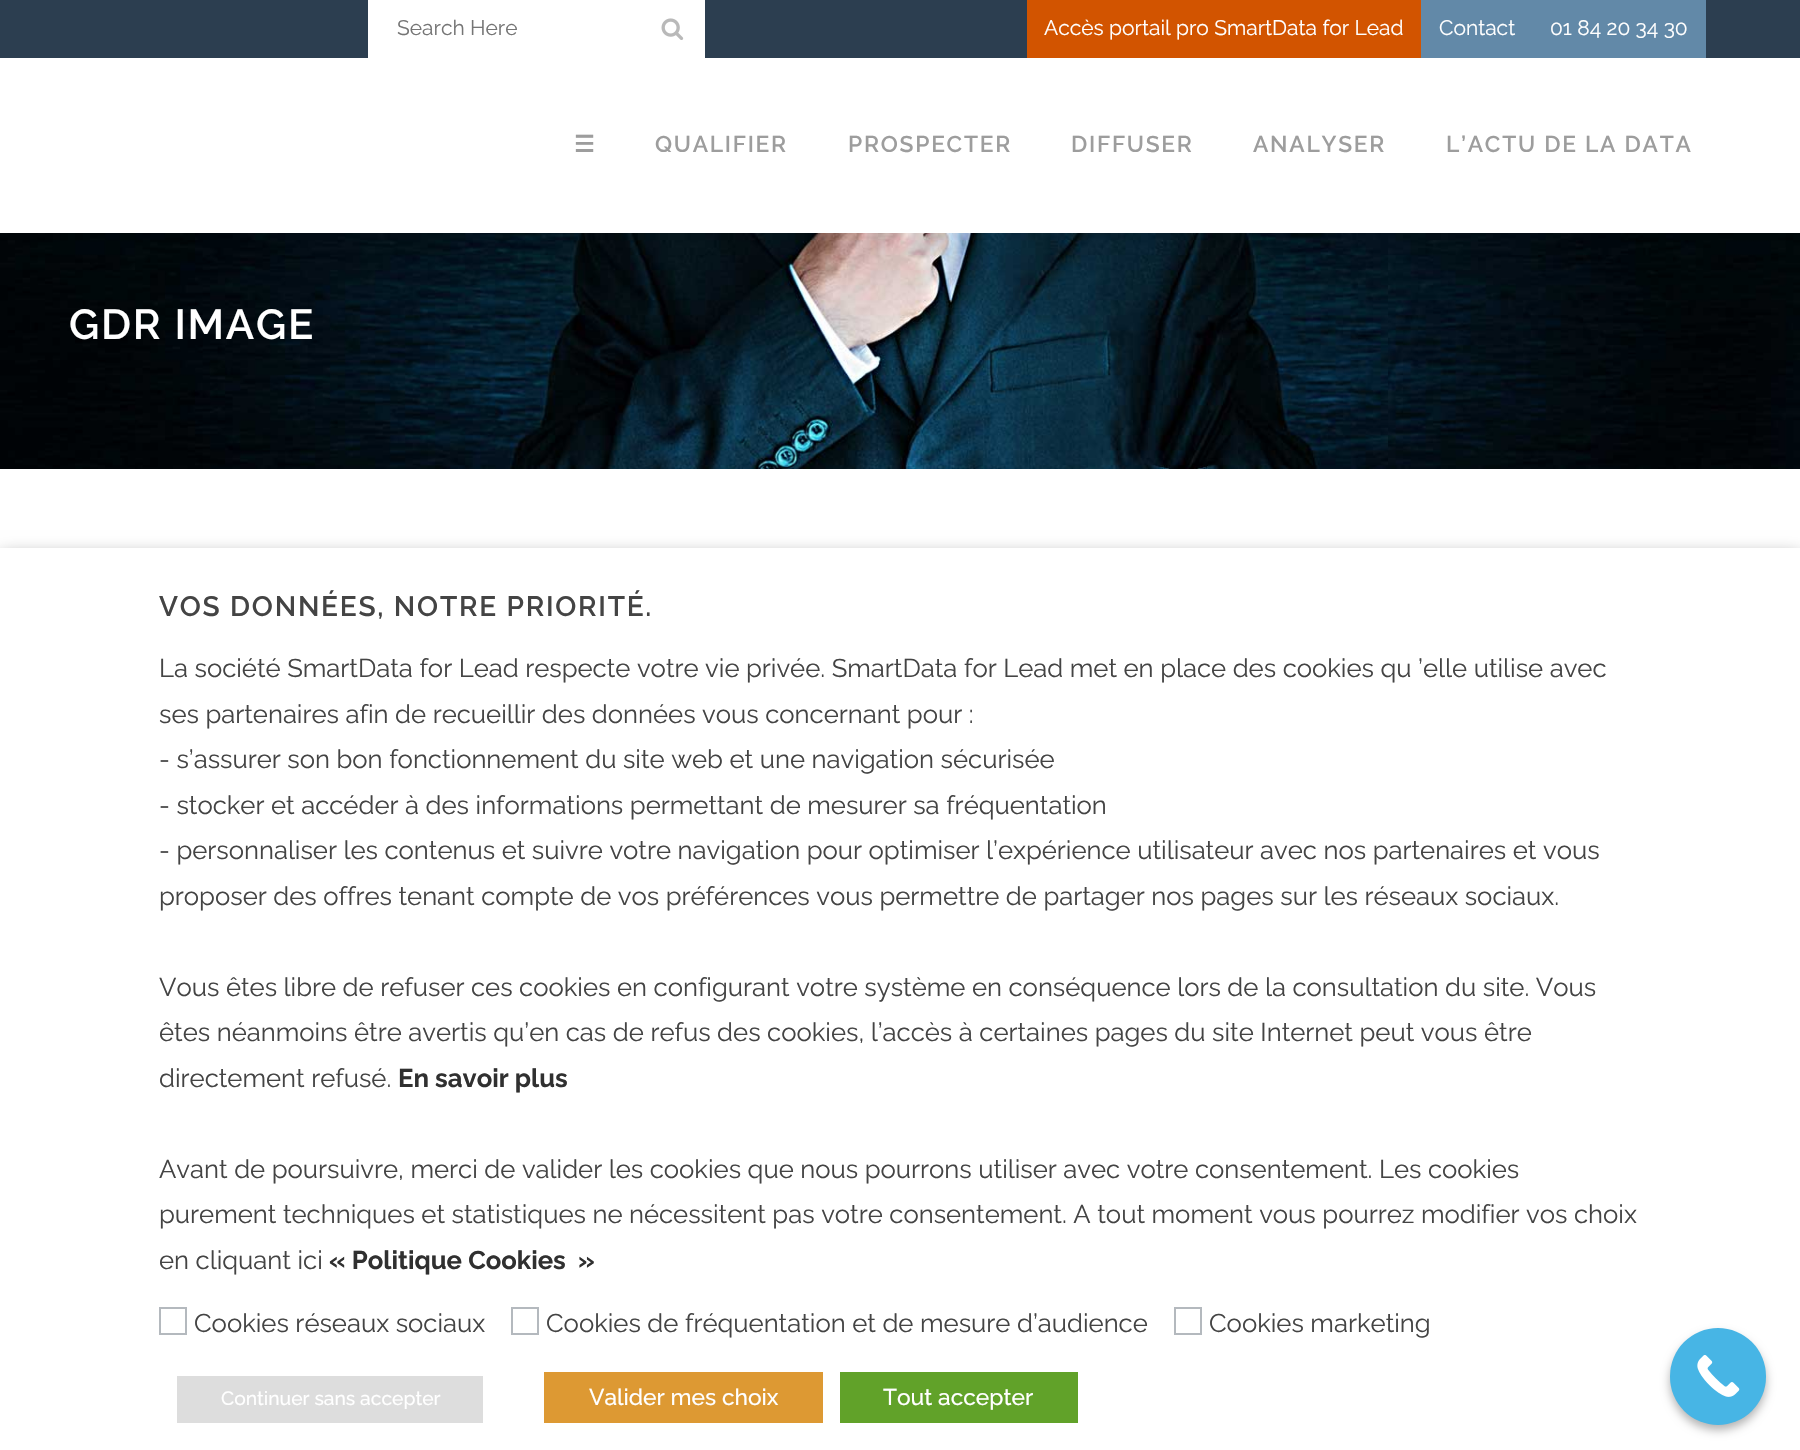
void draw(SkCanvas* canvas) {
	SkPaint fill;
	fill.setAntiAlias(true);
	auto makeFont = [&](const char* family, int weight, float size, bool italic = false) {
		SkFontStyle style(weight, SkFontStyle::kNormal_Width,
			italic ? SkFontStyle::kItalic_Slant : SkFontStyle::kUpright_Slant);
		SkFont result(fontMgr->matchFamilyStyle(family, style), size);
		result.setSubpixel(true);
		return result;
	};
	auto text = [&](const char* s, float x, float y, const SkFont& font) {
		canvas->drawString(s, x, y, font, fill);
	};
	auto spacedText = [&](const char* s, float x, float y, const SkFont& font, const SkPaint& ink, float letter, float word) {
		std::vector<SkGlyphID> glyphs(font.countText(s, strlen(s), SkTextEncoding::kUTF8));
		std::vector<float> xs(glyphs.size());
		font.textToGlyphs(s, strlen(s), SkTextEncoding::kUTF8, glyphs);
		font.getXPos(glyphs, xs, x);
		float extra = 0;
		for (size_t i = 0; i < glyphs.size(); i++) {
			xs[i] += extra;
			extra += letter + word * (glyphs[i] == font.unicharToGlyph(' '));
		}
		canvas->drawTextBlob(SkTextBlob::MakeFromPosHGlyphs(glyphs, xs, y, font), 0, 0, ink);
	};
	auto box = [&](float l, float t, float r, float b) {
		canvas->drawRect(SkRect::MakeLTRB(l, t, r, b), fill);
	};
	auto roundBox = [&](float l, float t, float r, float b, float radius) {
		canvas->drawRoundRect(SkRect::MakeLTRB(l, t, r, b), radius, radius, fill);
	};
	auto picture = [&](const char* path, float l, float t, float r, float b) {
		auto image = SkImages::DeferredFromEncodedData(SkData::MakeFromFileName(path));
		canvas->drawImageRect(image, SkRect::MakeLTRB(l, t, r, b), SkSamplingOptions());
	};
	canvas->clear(0xFFFFFFFF);
	fill.setColor(0xFF2C3E50);
	box(0, 0, 1800, 58);
	fill.setColor(0xFFFFFFFF);
	box(368, 0, 705, 58);
	picture("image0.png", 661, 18, 684, 40);
	fill.setColor(0xFFD25400);
	box(1027, 0, 1421, 58);
	fill.setColor(0xFF6289A8);
	box(1421, 0, 1706, 58);
	picture("image1.png", 0, 233, 1800, 469);
	fill.setColor(0x80000000);
	fill.setMaskFilter(SkMaskFilter::MakeBlur(kNormal_SkBlurStyle, 9));
	canvas->drawRect(SkRect::MakeLTRB(0, 557, 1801, 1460), fill);
	fill.setMaskFilter(nullptr);
	fill.setColor(0xFFFFFFFF);
	box(0, 548, 1800, 1450);
	fill.setStyle(SkPaint::kStroke_Style);
	fill.setStrokeWidth(2);
	fill.setColor(0xFFB4B9BE);
	canvas->drawRect(SkRect::MakeLTRB(160, 1308, 186, 1334), fill);
	canvas->drawRect(SkRect::MakeLTRB(512, 1308, 538, 1334), fill);
	canvas->drawRect(SkRect::MakeLTRB(1175, 1308, 1201, 1334), fill);
	fill.setStyle(SkPaint::kFill_Style);
	fill.setColor(0xFFDDDDDD);
	box(177, 1376, 483, 1423);
	fill.setColor(0xFFDD9933);
	box(544, 1372, 823, 1423);
	fill.setColor(0xFF61A229);
	box(840, 1372, 1078, 1423);
	fill.setColor(0x4D000000);
	fill.setMaskFilter(SkMaskFilter::MakeBlur(kNormal_SkBlurStyle, 5));
	canvas->drawRoundRect(SkRect::MakeLTRB(1670, 1334, 1766, 1430), 48, 48, fill);
	fill.setMaskFilter(nullptr);
	fill.setColor(0xFF47B5E5);
	roundBox(1670, 1328, 1766, 1425, 48);
	picture("image2.png", 1697, 1355, 1740, 1397);
	auto font1 = makeFont("Raleway", 400, 21);
	fill.setColor(0xFF757575);
	text("Search Here", 397, 35, font1);
	fill.setColor(0xFFFFFFFF);
	text("Accès portail pro SmartData for Lead", 1044, 35, font1);
	text("Contact", 1439, 35, font1);
	text("01 84 20 34 30", 1550, 35, font1);
	auto font2 = makeFont("DejaVu Sans", 700, 22.75f);
	fill.setColor(0xFF9D9D9D);
	spacedText("☰", 574, 152, font2, fill, 1.75f, 0);
	auto font3 = makeFont("Raleway", 600, 22.75f);
	spacedText("QUALIFIER", 655, 152, font3, fill, 1.75f, 0);
	spacedText("PROSPECTER", 848, 152, font3, fill, 1.75f, 0);
	spacedText("DIFFUSER", 1071, 152, font3, fill, 1.75f, 0);
	spacedText("ANALYSER", 1253, 152, font3, fill, 1.75f, 0);
	spacedText("L’ACTU DE LA DATA", 1446, 152, font3, fill, 1.75f, 0);
	auto font4 = makeFont("Raleway", 600, 42);
	fill.setColor(0xFFFFFFFF);
	spacedText("GDR IMAGE", 69, 339, font4, fill, 1.75f, 0);
	auto font5 = makeFont("Raleway", 600, 28);
	fill.setColor(0xFF444444);
	spacedText("VOS DONNÉES, NOTRE PRIORITÉ.", 159, 616, font5, fill, 1.75f, 0);
	auto font6 = makeFont("Raleway", 400, 25.67f);
	text("La société SmartData for Lead respecte votre vie privée. SmartData for Lead met en place des cookies qu ’elle utilise avec", 159, 677, font6);
	text("ses partenaires afin de recueillir des données vous concernant pour :", 159, 723, font6);
	text("- s’assurer son bon fonctionnement du site web et une navigation sécurisée", 159, 768, font6);
	text("- stocker et accéder à des informations permettant de mesurer sa fréquentation", 159, 814, font6);
	text("- personnaliser les contenus et suivre votre navigation pour optimiser l’expérience utilisateur avec nos partenaires et vous", 159, 859, font6);
	text("proposer des offres tenant compte de vos préférences vous permettre de partager nos pages sur les réseaux sociaux.", 159, 905, font6);
	text("Vous êtes libre de refuser ces cookies en configurant votre système en conséquence lors de la consultation du site. Vous", 159, 996, font6);
	text("êtes néanmoins être avertis qu’en cas de refus des cookies, l’accès à certaines pages du site Internet peut vous être", 159, 1041, font6);
	text("directement refusé.", 159, 1087, font6);
	auto font7 = makeFont("Raleway", 700, 25.67f);
	fill.setColor(0xFF303030);
	text("En savoir plus", 398, 1087, font7);
	fill.setColor(0xFF444444);
	text("Avant de poursuivre, merci de valider les cookies que nous pourrons utiliser avec votre consentement. Les cookies", 159, 1178, font6);
	text("purement techniques et statistiques ne nécessitent pas votre consentement. A tout moment vous pourrez modifier vos choix", 159, 1223, font6);
	text("en cliquant ici", 159, 1269, font6);
	fill.setColor(0xFF303030);
	text("« Politique Cookies  »", 329, 1269, font7);
	fill.setColor(0xFF444444);
	text("Cookies réseaux sociaux", 194, 1332, font6);
	text("Cookies de fréquentation et de mesure d’audience", 546, 1332, font6);
	text("Cookies marketing", 1209, 1332, font6);
	auto font8 = makeFont("Raleway", 500, 19.25f);
	fill.setColor(0xFFFFFFFF);
	text("Continuer sans accepter", 221, 1405, font8);
	auto font9 = makeFont("Raleway", 500, 22.75f);
	text("Valider mes choix", 589, 1405, font9);
	text("Tout accepter", 883, 1405, font9);
}
